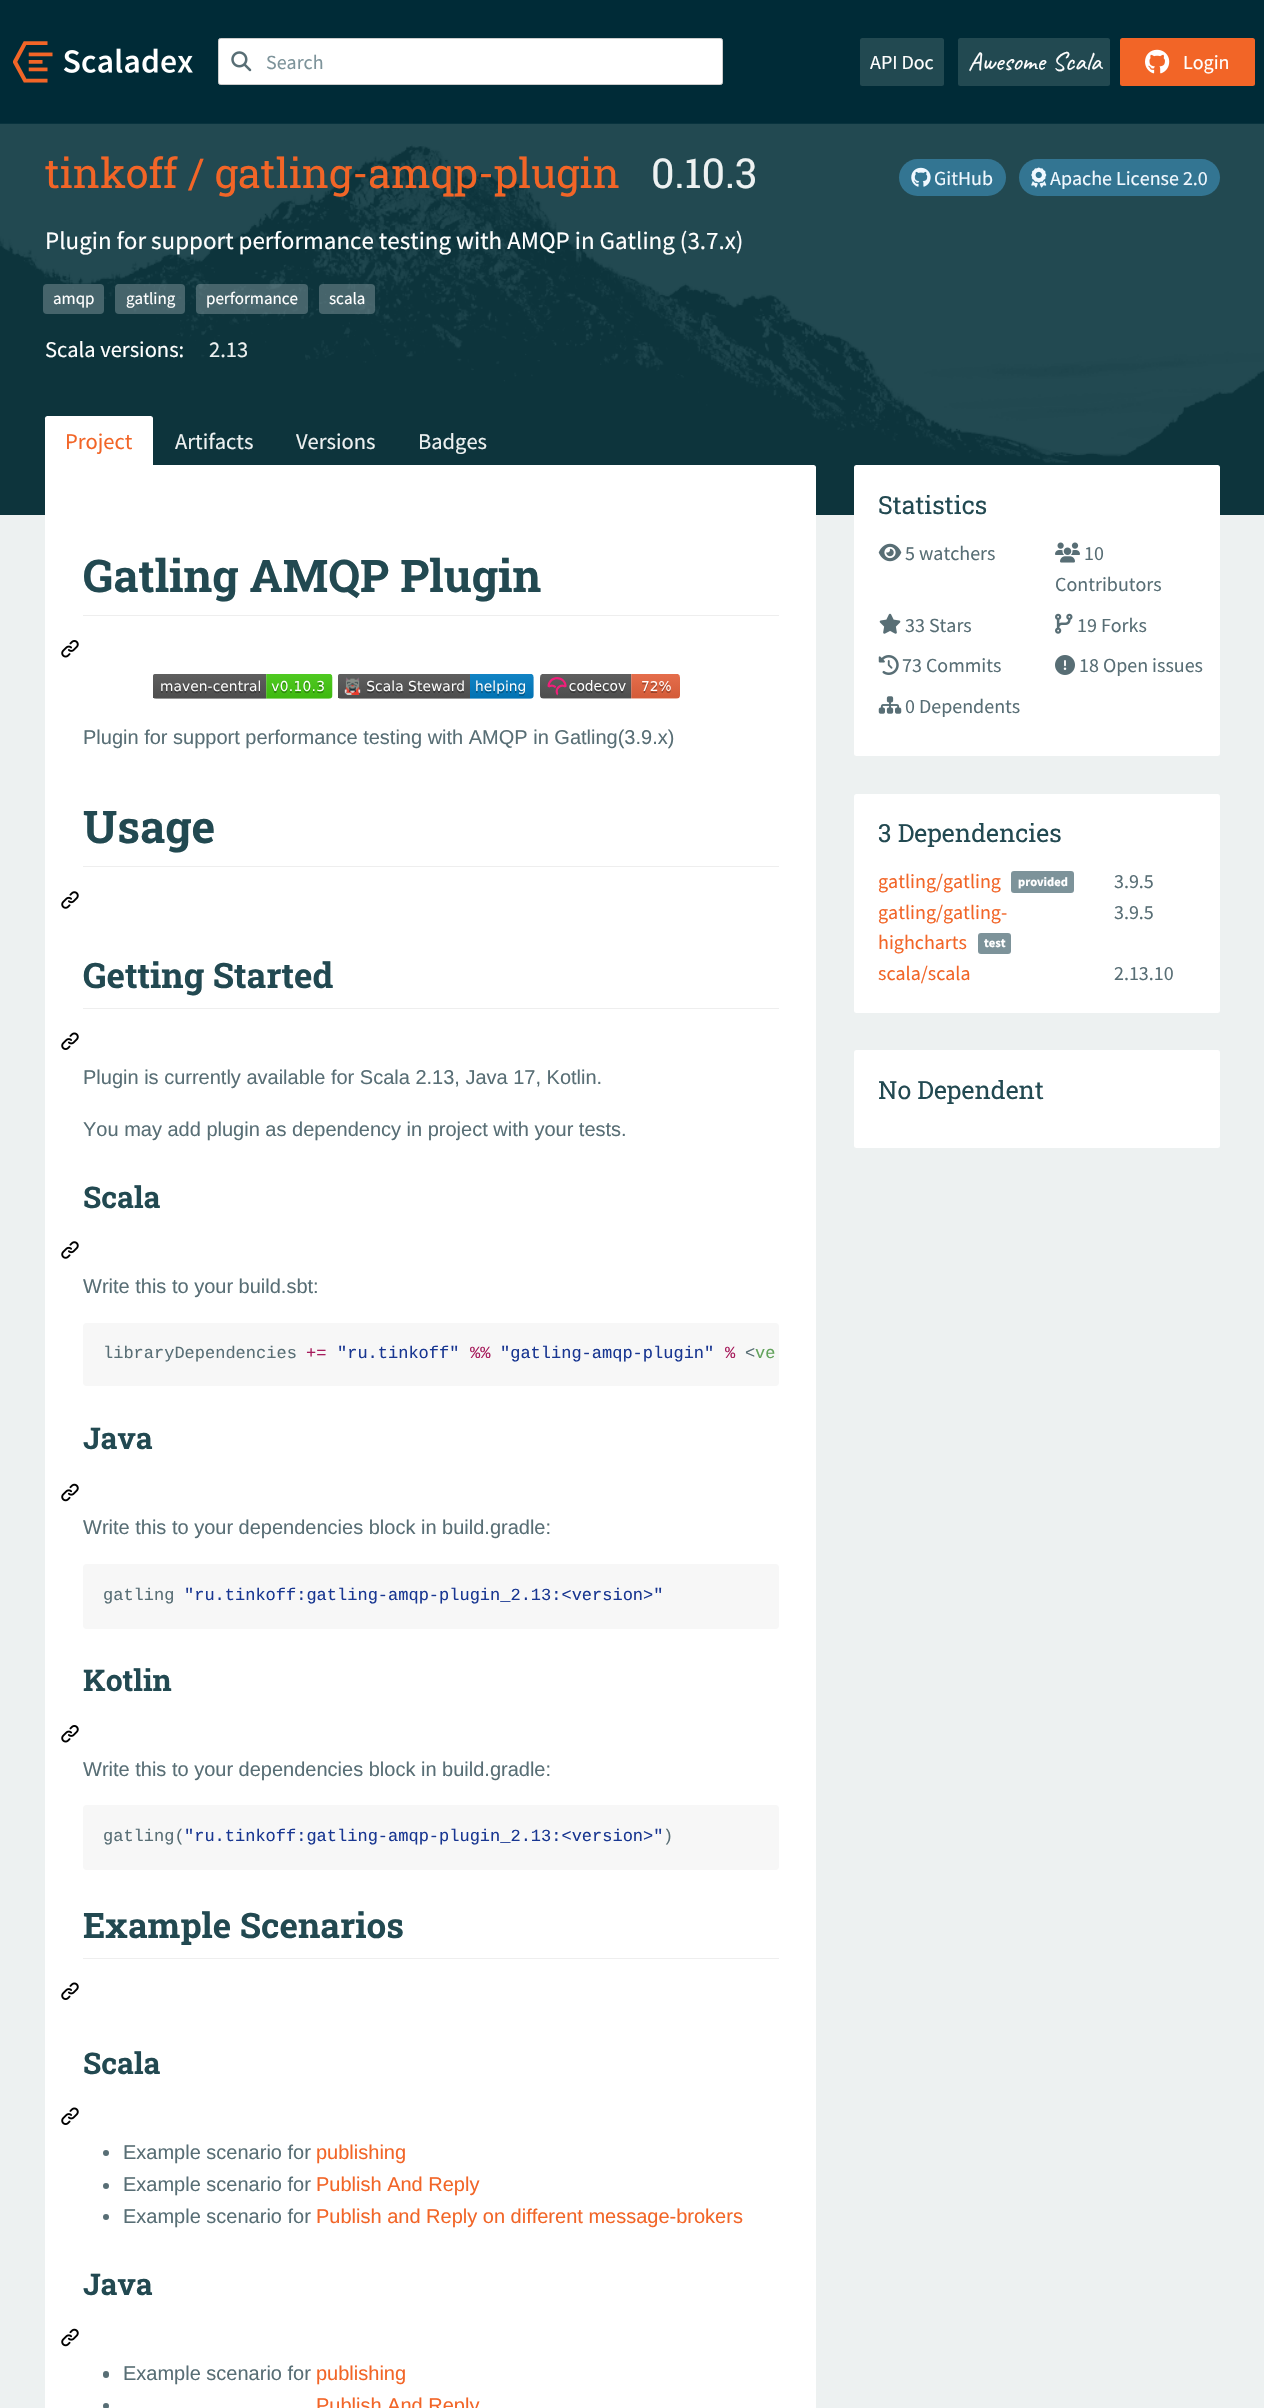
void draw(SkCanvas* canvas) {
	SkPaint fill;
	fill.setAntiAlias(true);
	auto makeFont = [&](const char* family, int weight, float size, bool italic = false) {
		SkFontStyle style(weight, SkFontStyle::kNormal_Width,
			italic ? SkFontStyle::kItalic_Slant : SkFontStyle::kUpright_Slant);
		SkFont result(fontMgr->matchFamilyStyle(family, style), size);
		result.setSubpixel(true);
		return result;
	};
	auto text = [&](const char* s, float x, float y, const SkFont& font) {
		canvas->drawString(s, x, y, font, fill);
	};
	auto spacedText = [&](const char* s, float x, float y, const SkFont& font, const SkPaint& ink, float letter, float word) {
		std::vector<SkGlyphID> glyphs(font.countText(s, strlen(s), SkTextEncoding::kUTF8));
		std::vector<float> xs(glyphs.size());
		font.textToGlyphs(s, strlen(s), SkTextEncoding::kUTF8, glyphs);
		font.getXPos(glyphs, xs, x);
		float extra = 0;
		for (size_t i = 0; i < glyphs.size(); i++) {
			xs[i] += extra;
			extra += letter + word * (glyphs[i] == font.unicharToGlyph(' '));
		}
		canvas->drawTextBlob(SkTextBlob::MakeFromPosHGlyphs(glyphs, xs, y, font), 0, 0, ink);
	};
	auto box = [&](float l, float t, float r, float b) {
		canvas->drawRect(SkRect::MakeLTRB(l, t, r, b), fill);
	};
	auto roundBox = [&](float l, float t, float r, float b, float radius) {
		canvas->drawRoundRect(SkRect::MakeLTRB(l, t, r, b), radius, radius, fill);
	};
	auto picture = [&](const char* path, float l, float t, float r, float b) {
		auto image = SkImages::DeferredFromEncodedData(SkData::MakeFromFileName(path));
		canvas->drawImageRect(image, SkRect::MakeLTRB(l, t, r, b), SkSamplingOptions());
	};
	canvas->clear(0xFFEDF1F1);
	fill.setColor(0xFF002B37);
	box(0, 0, 1264, 124);
	picture("image0.png", 13, 41, 193, 83);
	fill.setColor(0xFFFFFFFF);
	canvas->drawRoundRect(SkRect::MakeLTRB(218.5f, 38.5f, 722.5f, 84.5f), 2, 2, fill);
	fill.setStyle(SkPaint::kStroke_Style);
	fill.setStrokeWidth(1);
	fill.setColor(0xFFCCCCCC);
	canvas->drawRoundRect(SkRect::MakeLTRB(218.5f, 38.5f, 722.5f, 84.5f), 2, 2, fill);
	picture("image1.png", 231, 51, 252, 72);
	fill.setStyle(SkPaint::kFill_Style);
	fill.setColor(0xFF224951);
	roundBox(860, 38, 944, 86, 2.5f);
	roundBox(958, 38, 1110, 86, 2.5f);
	fill.setColor(0xFFF26527);
	roundBox(1120, 38, 1255, 86, 2.5f);
	picture("image2.png", 1145, 49, 1170, 74);
	fill.setColor(0xFF0D343C);
	box(0, 462, 1264, 515);
	picture("image3.png", 0, 123, 1264, 463);
	fill.setColor(0xFF337592);
	roundBox(899, 159, 1006, 196, 18.5f);
	picture("image4.png", 911, 167, 931, 187);
	roundBox(1019, 159, 1220, 196, 18.5f);
	picture("image5.png", 1031, 167, 1047, 188);
	fill.setColor(0x807D939A);
	roundBox(43, 284, 104, 314, 4);
	roundBox(115, 284, 185, 314, 4);
	roundBox(196, 284, 308, 314, 4);
	roundBox(319, 284, 375, 314, 4);
	fill.setColor(0xFFFFFFFF);
	canvas->drawPath(SkPathBuilder().moveTo(47.5f, 416).lineTo(150.5f, 416).cubicTo(152, 416, 153, 417, 153, 418.5f).lineTo(153, 465).lineTo(45, 465).lineTo(45, 418.5f).cubicTo(45, 417, 46, 416, 47.5f, 416).close().detach(), fill);
	canvas->drawPath(SkPathBuilder().moveTo(45, 465).lineTo(813.5f, 465).cubicTo(815, 465, 816, 466, 816, 467.5f).lineTo(816, 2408.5f).cubicTo(816, 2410, 815, 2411, 813.5f, 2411).lineTo(47.5f, 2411).cubicTo(46, 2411, 45, 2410, 45, 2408.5f).close().detach(), fill);
	fill.setColor(0xFFEEEEEE);
	box(83, 615, 779, 616);
	picture("image6.png", 61, 640, 79, 658);
	picture("image7.png", 153, 674, 333, 699);
	picture("image8.png", 338, 674, 534, 699);
	picture("image9.png", 540, 674, 680, 699);
	box(83, 866, 779, 867);
	picture("image10.png", 61, 891, 79, 909);
	box(83, 1008, 779, 1009);
	picture("image11.png", 61, 1032, 79, 1050);
	picture("image10.png", 61, 1241, 79, 1259);
	fill.setColor(0xFFF7F7F7);
	roundBox(83, 1323, 779, 1386, 4);
	picture("image12.png", 61, 1483, 79, 1502);
	roundBox(83, 1564, 779, 1629, 4);
	picture("image6.png", 61, 1725, 79, 1743);
	roundBox(83, 1805, 779, 1870, 4);
	fill.setColor(0xFFEEEEEE);
	box(83, 1958, 779, 1959);
	picture("image11.png", 61, 1982, 79, 2000);
	picture("image11.png", 61, 2107, 79, 2125);
	fill.setColor(0xFF586E75);
	canvas->drawCircle(106, 2153, 3, fill);
	canvas->drawCircle(106, 2186, 3, fill);
	canvas->drawCircle(106, 2217, 3, fill);
	picture("image12.png", 61, 2328, 79, 2347);
	roundBox(103, 2371, 109, 2378, 3);
	canvas->drawCircle(106, 2406, 3, fill);
	fill.setColor(0xFFFFFFFF);
	roundBox(854, 465, 1220, 756, 2.5f);
	picture("image13.png", 878, 543, 902, 562);
	picture("image14.png", 1055, 542, 1080, 563);
	picture("image15.png", 879, 613, 901, 634);
	picture("image16.png", 1055, 613, 1073, 634);
	picture("image17.png", 878, 655, 899, 675);
	picture("image18.png", 1055, 655, 1075, 675);
	picture("image19.png", 878, 696, 902, 714);
	roundBox(854, 794, 1220, 1013, 2.5f);
	fill.setColor(0xFF7D939A);
	roundBox(1011, 871, 1074, 893, 3);
	roundBox(978, 933, 1011, 954, 3);
	fill.setColor(0xFFFFFFFF);
	roundBox(854, 1050, 1220, 1148, 2.5f);
	auto font1 = makeFont("Source Sans Pro", 400, 20);
	fill.setColor(0xFF7D939A);
	text("Search", 266, 69, font1);
	fill.setColor(0xFFFFFFFF);
	text("API Doc", 870, 69, font1);
	auto font2 = makeFont("Caveat", 400, 26.25f);
	spacedText("Awesome Scala", 968, 70, font2, fill, 0, 1);
	text("Login", 1183, 69, font1);
	auto font3 = makeFont("Roboto Slab", 400, 41.25f);
	fill.setColor(0xFFF26527);
	text("tinkoff / gatling-amqp-plugin", 45, 188, font3);
	fill.setColor(0xFFEDF1F1);
	text("0.10.3", 651, 188, font3);
	fill.setColor(0xFFF0F8FF);
	text("GitHub", 934, 185, font1);
	text("Apache License 2.0", 1050, 185, font1);
	auto font4 = makeFont("Source Sans Pro", 400, 25);
	fill.setColor(0xFFFFFFFF);
	text("Plugin for support performance testing with AMQP in Gatling (3.7.x)", 45, 249, font4);
	auto font5 = makeFont("Source Sans Pro", 400, 17);
	text("amqp", 53, 304, font5);
	text("gatling", 126, 304, font5);
	text("performance", 206, 304, font5);
	text("scala", 329, 304, font5);
	auto font6 = makeFont("Source Sans Pro", 400, 22.5f);
	text("Scala versions:", 45, 357, font6);
	fill.setColor(0xFFEDF1F1);
	text("2.13", 209, 357, font6);
	fill.setColor(0xFFF26527);
	text("Project", 65, 449, font6);
	fill.setColor(0xFFEDF1F1);
	text("Artifacts", 175, 449, font6);
	text("Versions", 296, 449, font6);
	text("Badges", 418, 449, font6);
	auto font7 = makeFont("Roboto Slab", 700, 45);
	fill.setColor(0xFF224951);
	text("Gatling AMQP Plugin", 83, 592, font7);
	auto font8 = makeFont("Liberation Sans", 400, 20);
	fill.setColor(0xFF586E75);
	text("Plugin for support performance testing with AMQP in Gatling(3.9.x)", 83, 744, font8);
	fill.setColor(0xFF224951);
	text("Usage", 83, 843, font7);
	auto font9 = makeFont("Roboto Slab", 700, 35);
	text("Getting Started", 83, 988, font9);
	fill.setColor(0xFF586E75);
	text("Plugin is currently available for Scala 2.13, Java 17, Kotlin.", 83, 1084, font8);
	text("You may add plugin as dependency in project with your tests.", 83, 1136, font8);
	auto font10 = makeFont("Roboto Slab", 700, 30);
	fill.setColor(0xFF224951);
	text("Scala", 83, 1208, font10);
	fill.setColor(0xFF586E75);
	text("Write this to your build.sbt:", 83, 1293, font8);
	auto font11 = makeFont("Liberation Mono", 400, 17);
	text("libraryDependencies", 103, 1358, font11);
	fill.setColor(0xFFA71D5D);
	text("+=", 306, 1358, font11);
	fill.setColor(0xFF183691);
	text("\"ru.tinkoff\"", 337, 1358, font11);
	fill.setColor(0xFFA71D5D);
	text("%%", 470, 1358, font11);
	fill.setColor(0xFF183691);
	text("\"gatling-amqp-plugin\"", 500, 1358, font11);
	fill.setColor(0xFFA71D5D);
	text("%", 725, 1358, font11);
	fill.setColor(0xFF586E75);
	text("<", 745, 1358, font11);
	fill.setColor(0xFF63A35C);
	text("ve", 755, 1358, font11);
	fill.setColor(0xFF224951);
	text("Java", 83, 1449, font10);
	fill.setColor(0xFF586E75);
	text("Write this to your dependencies block in build.gradle:", 83, 1534, font8);
	text("gatling", 103, 1600, font11);
	fill.setColor(0xFF183691);
	text("\"ru.tinkoff:gatling-amqp-plugin_2.13:<version>\"", 184, 1600, font11);
	fill.setColor(0xFF224951);
	text("Kotlin", 83, 1691, font10);
	fill.setColor(0xFF586E75);
	text("Write this to your dependencies block in build.gradle:", 83, 1776, font8);
	text("gatling(", 103, 1841, font11);
	fill.setColor(0xFF183691);
	text("\"ru.tinkoff:gatling-amqp-plugin_2.13:<version>\"", 184, 1841, font11);
	fill.setColor(0xFF586E75);
	text(")", 663, 1841, font11);
	fill.setColor(0xFF224951);
	text("Example Scenarios", 83, 1938, font9);
	text("Scala", 83, 2074, font10);
	fill.setColor(0xFF586E75);
	text("Example scenario for", 123, 2159, font8);
	fill.setColor(0xFFF26527);
	text("publishing", 316, 2159, font8);
	fill.setColor(0xFF586E75);
	text("Example scenario for", 123, 2191, font8);
	fill.setColor(0xFFF26527);
	text("Publish And Reply", 316, 2191, font8);
	fill.setColor(0xFF586E75);
	text("Example scenario for", 123, 2223, font8);
	fill.setColor(0xFFF26527);
	text("Publish and Reply on different message-brokers", 316, 2223, font8);
	fill.setColor(0xFF224951);
	text("Java", 83, 2295, font10);
	fill.setColor(0xFF586E75);
	text("Example scenario for", 123, 2380, font8);
	fill.setColor(0xFFF26527);
	text("publishing", 316, 2380, font8);
	text("Publish And Reply", 316, 2412, font8);
	auto font12 = makeFont("Roboto Slab", 400, 25);
	fill.setColor(0xFF224951);
	text("Statistics", 878, 514, font12);
	fill.setColor(0xFF586E75);
	text("5 watchers", 905, 560, font1);
	text("10", 1084, 560, font1);
	text("Contributors", 1055, 591, font1);
	text("33 Stars", 905, 632, font1);
	text("19 Forks", 1077, 632, font1);
	text("73 Commits", 902, 672, font1);
	text("18 Open issues", 1079, 672, font1);
	text("0 Dependents", 905, 713, font1);
	fill.setColor(0xFF224951);
	text("3 Dependencies", 878, 842, font12);
	fill.setColor(0xFFF26527);
	text("gatling/gatling", 878, 888, font1);
	auto font13 = makeFont("Source Sans Pro", 700, 12.5f);
	fill.setColor(0xFFFFFFFF);
	text("provided", 1018, 886, font13);
	fill.setColor(0xFF586E75);
	text("3.9.5", 1114, 888, font1);
	fill.setColor(0xFFF26527);
	text("gatling/gatling-", 878, 919, font1);
	text("highcharts", 878, 949, font1);
	fill.setColor(0xFFFFFFFF);
	text("test", 984, 947, font13);
	fill.setColor(0xFF586E75);
	text("3.9.5", 1114, 919, font1);
	fill.setColor(0xFFF26527);
	text("scala/scala", 878, 980, font1);
	fill.setColor(0xFF586E75);
	text("2.13.10", 1114, 980, font1);
	fill.setColor(0xFF224951);
	text("No Dependent", 878, 1099, font12);
}
